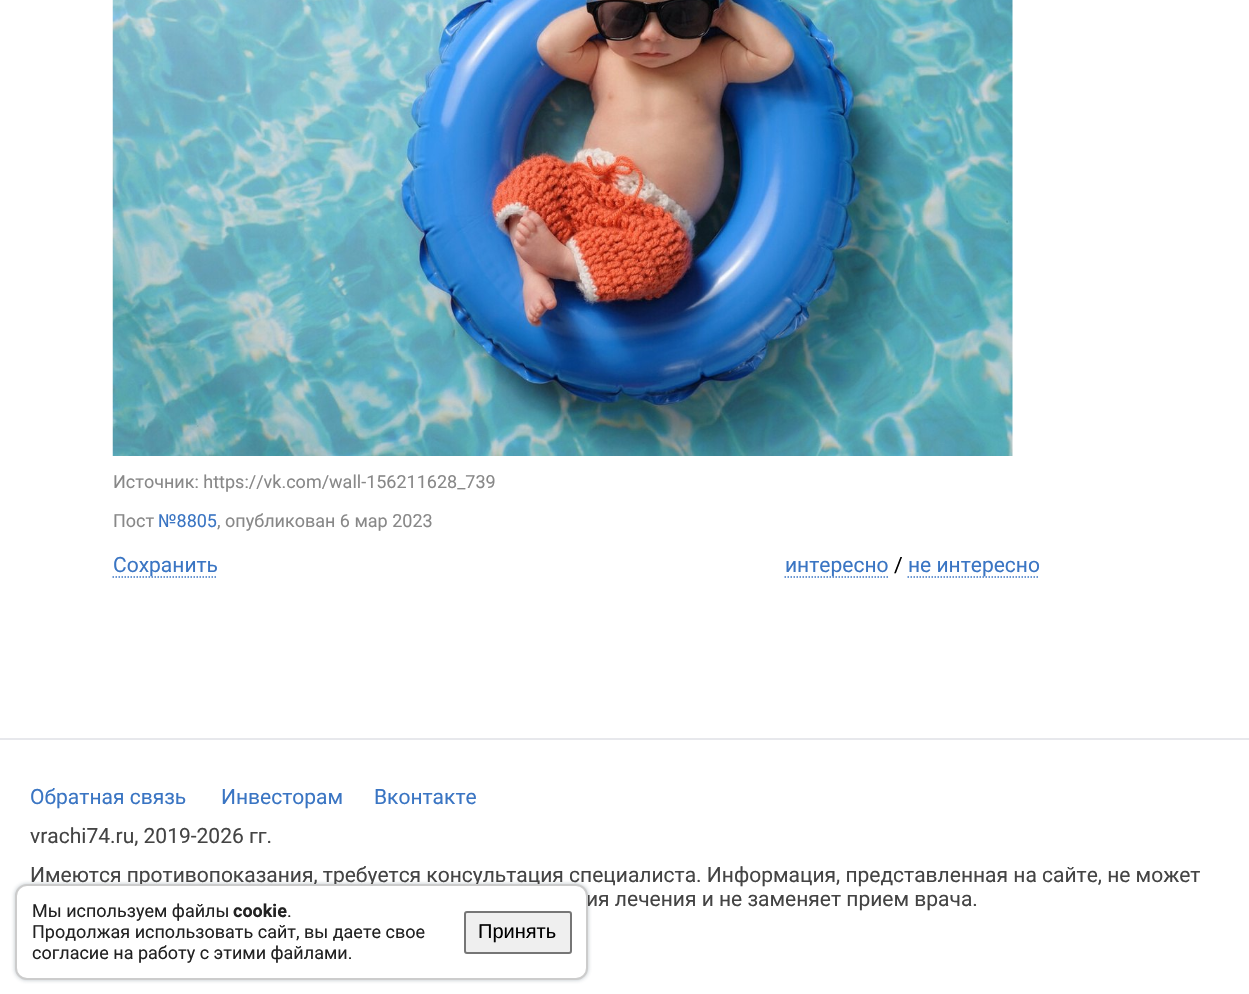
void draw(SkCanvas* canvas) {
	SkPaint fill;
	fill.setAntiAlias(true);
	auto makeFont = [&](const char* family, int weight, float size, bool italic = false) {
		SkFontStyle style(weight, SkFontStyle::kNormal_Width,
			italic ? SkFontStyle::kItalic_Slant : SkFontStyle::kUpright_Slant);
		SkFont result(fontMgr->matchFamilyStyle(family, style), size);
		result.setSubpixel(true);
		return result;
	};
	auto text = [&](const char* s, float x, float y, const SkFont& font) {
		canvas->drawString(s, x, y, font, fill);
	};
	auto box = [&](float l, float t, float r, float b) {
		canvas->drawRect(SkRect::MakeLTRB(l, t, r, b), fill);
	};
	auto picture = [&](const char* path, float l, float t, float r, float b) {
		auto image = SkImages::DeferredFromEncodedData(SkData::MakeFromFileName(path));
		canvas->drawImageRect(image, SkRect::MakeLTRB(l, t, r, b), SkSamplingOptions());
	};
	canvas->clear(0xFFFFFFFF);
	picture("image0.png", 112, 0, 1013, 456);
	fill.setStyle(SkPaint::kStroke_Style);
	fill.setStrokeWidth(1.5f);
	fill.setColor(0xFF3A75C3);
	fill.setPathEffect(SkDashPathEffect::Make({{1.5f, 1.5f}}, 0));
	canvas->drawPath(SkPathBuilder().moveTo(112.5f, 577).lineTo(217.5f, 577).detach(), fill);
	fill.setPathEffect(nullptr);
	fill.setPathEffect(SkDashPathEffect::Make({{1.5f, 1.5f}}, 0));
	canvas->drawPath(SkPathBuilder().moveTo(784.5f, 577).lineTo(888, 577).detach(), fill);
	fill.setPathEffect(nullptr);
	fill.setPathEffect(SkDashPathEffect::Make({{1.5f, 1.5f}}, 0));
	canvas->drawPath(SkPathBuilder().moveTo(907.5f, 577).lineTo(1039.5f, 577).detach(), fill);
	fill.setPathEffect(nullptr);
	fill.setStrokeWidth(2);
	fill.setColor(0xFFE7E8EC);
	canvas->drawRect(SkRect::MakeLTRB(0, 739, 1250, 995), fill);
	fill.setStyle(SkPaint::kFill_Style);
	fill.setColor(0x4D223C50);
	fill.setMaskFilter(SkMaskFilter::MakeBlur(kNormal_SkBlurStyle, 2));
	canvas->drawRoundRect(SkRect::MakeLTRB(15, 884, 588, 980), 12, 12, fill);
	fill.setMaskFilter(nullptr);
	fill.setColor(0xFFFFFFFF);
	box(0, 740, 1, 994);
	auto font1 = makeFont("Roboto", 400, 18);
	fill.setColor(0xFF888888);
	text("Источник: https://vk.com/wall-156211628_739", 113, 488, font1);
	text("Пост", 113, 527, font1);
	fill.setColor(0xFF3A75C3);
	text("№8805", 158, 527, font1);
	fill.setColor(0xFF888888);
	text(", опубликован 6 мар 2023", 217, 527, font1);
	auto font2 = makeFont("Roboto", 400, 21);
	fill.setColor(0xFF3A75C3);
	text("Сохранить", 113, 572, font2);
	text("интересно", 785, 572, font2);
	fill.setColor(0xFF000000);
	text("/", 894, 572, font2);
	fill.setColor(0xFF3A75C3);
	text("не интересно", 908, 572, font2);
	text("Обратная связь", 30, 804, font2);
	text("Инвесторам", 221, 804, font2);
	text("Вконтакте", 374, 804, font2);
	fill.setColor(0xFF444444);
	text("vrachi74.ru, 2019-2026 гг.", 30, 843, font2);
	text("Имеются противопоказания, требуется консультация специалиста. Информация, представленная на сайте, не может", 30, 882, font2);
	text("ия лечения и не заменяет прием врача.", 586, 906, font2);
	fill.setColor(0xFFFFFFFF);
	canvas->drawRoundRect(SkRect::MakeLTRB(16, 885, 587, 979), 11, 11, fill);
	fill.setStyle(SkPaint::kStroke_Style);
	fill.setColor(0xFFCCCCCC);
	canvas->drawRoundRect(SkRect::MakeLTRB(16, 885, 587, 979), 11, 11, fill);
	fill.setStyle(SkPaint::kFill_Style);
	fill.setColor(0xFFEFEFEF);
	canvas->drawRoundRect(SkRect::MakeLTRB(465, 912, 571, 953), 2, 2, fill);
	fill.setStyle(SkPaint::kStroke_Style);
	fill.setColor(0xFF767676);
	canvas->drawRoundRect(SkRect::MakeLTRB(465, 912, 571, 953), 2, 2, fill);
	auto font3 = makeFont("Liberation Sans", 400, 20);
	fill.setStyle(SkPaint::kFill_Style);
	fill.setColor(0xFF000000);
	text("Принять", 478, 938, font3);
	fill.setColor(0xFF222222);
	text("согласие на работу с этими файлами.", 32, 959, font1);
	text("Продолжая использовать сайт, вы даете свое", 32, 938, font1);
	text(".", 287, 917, font1);
	auto font4 = makeFont("Roboto", 700, 18);
	text("cookie", 233, 917, font4);
	text("Мы используем файлы", 32, 917, font1);
}
